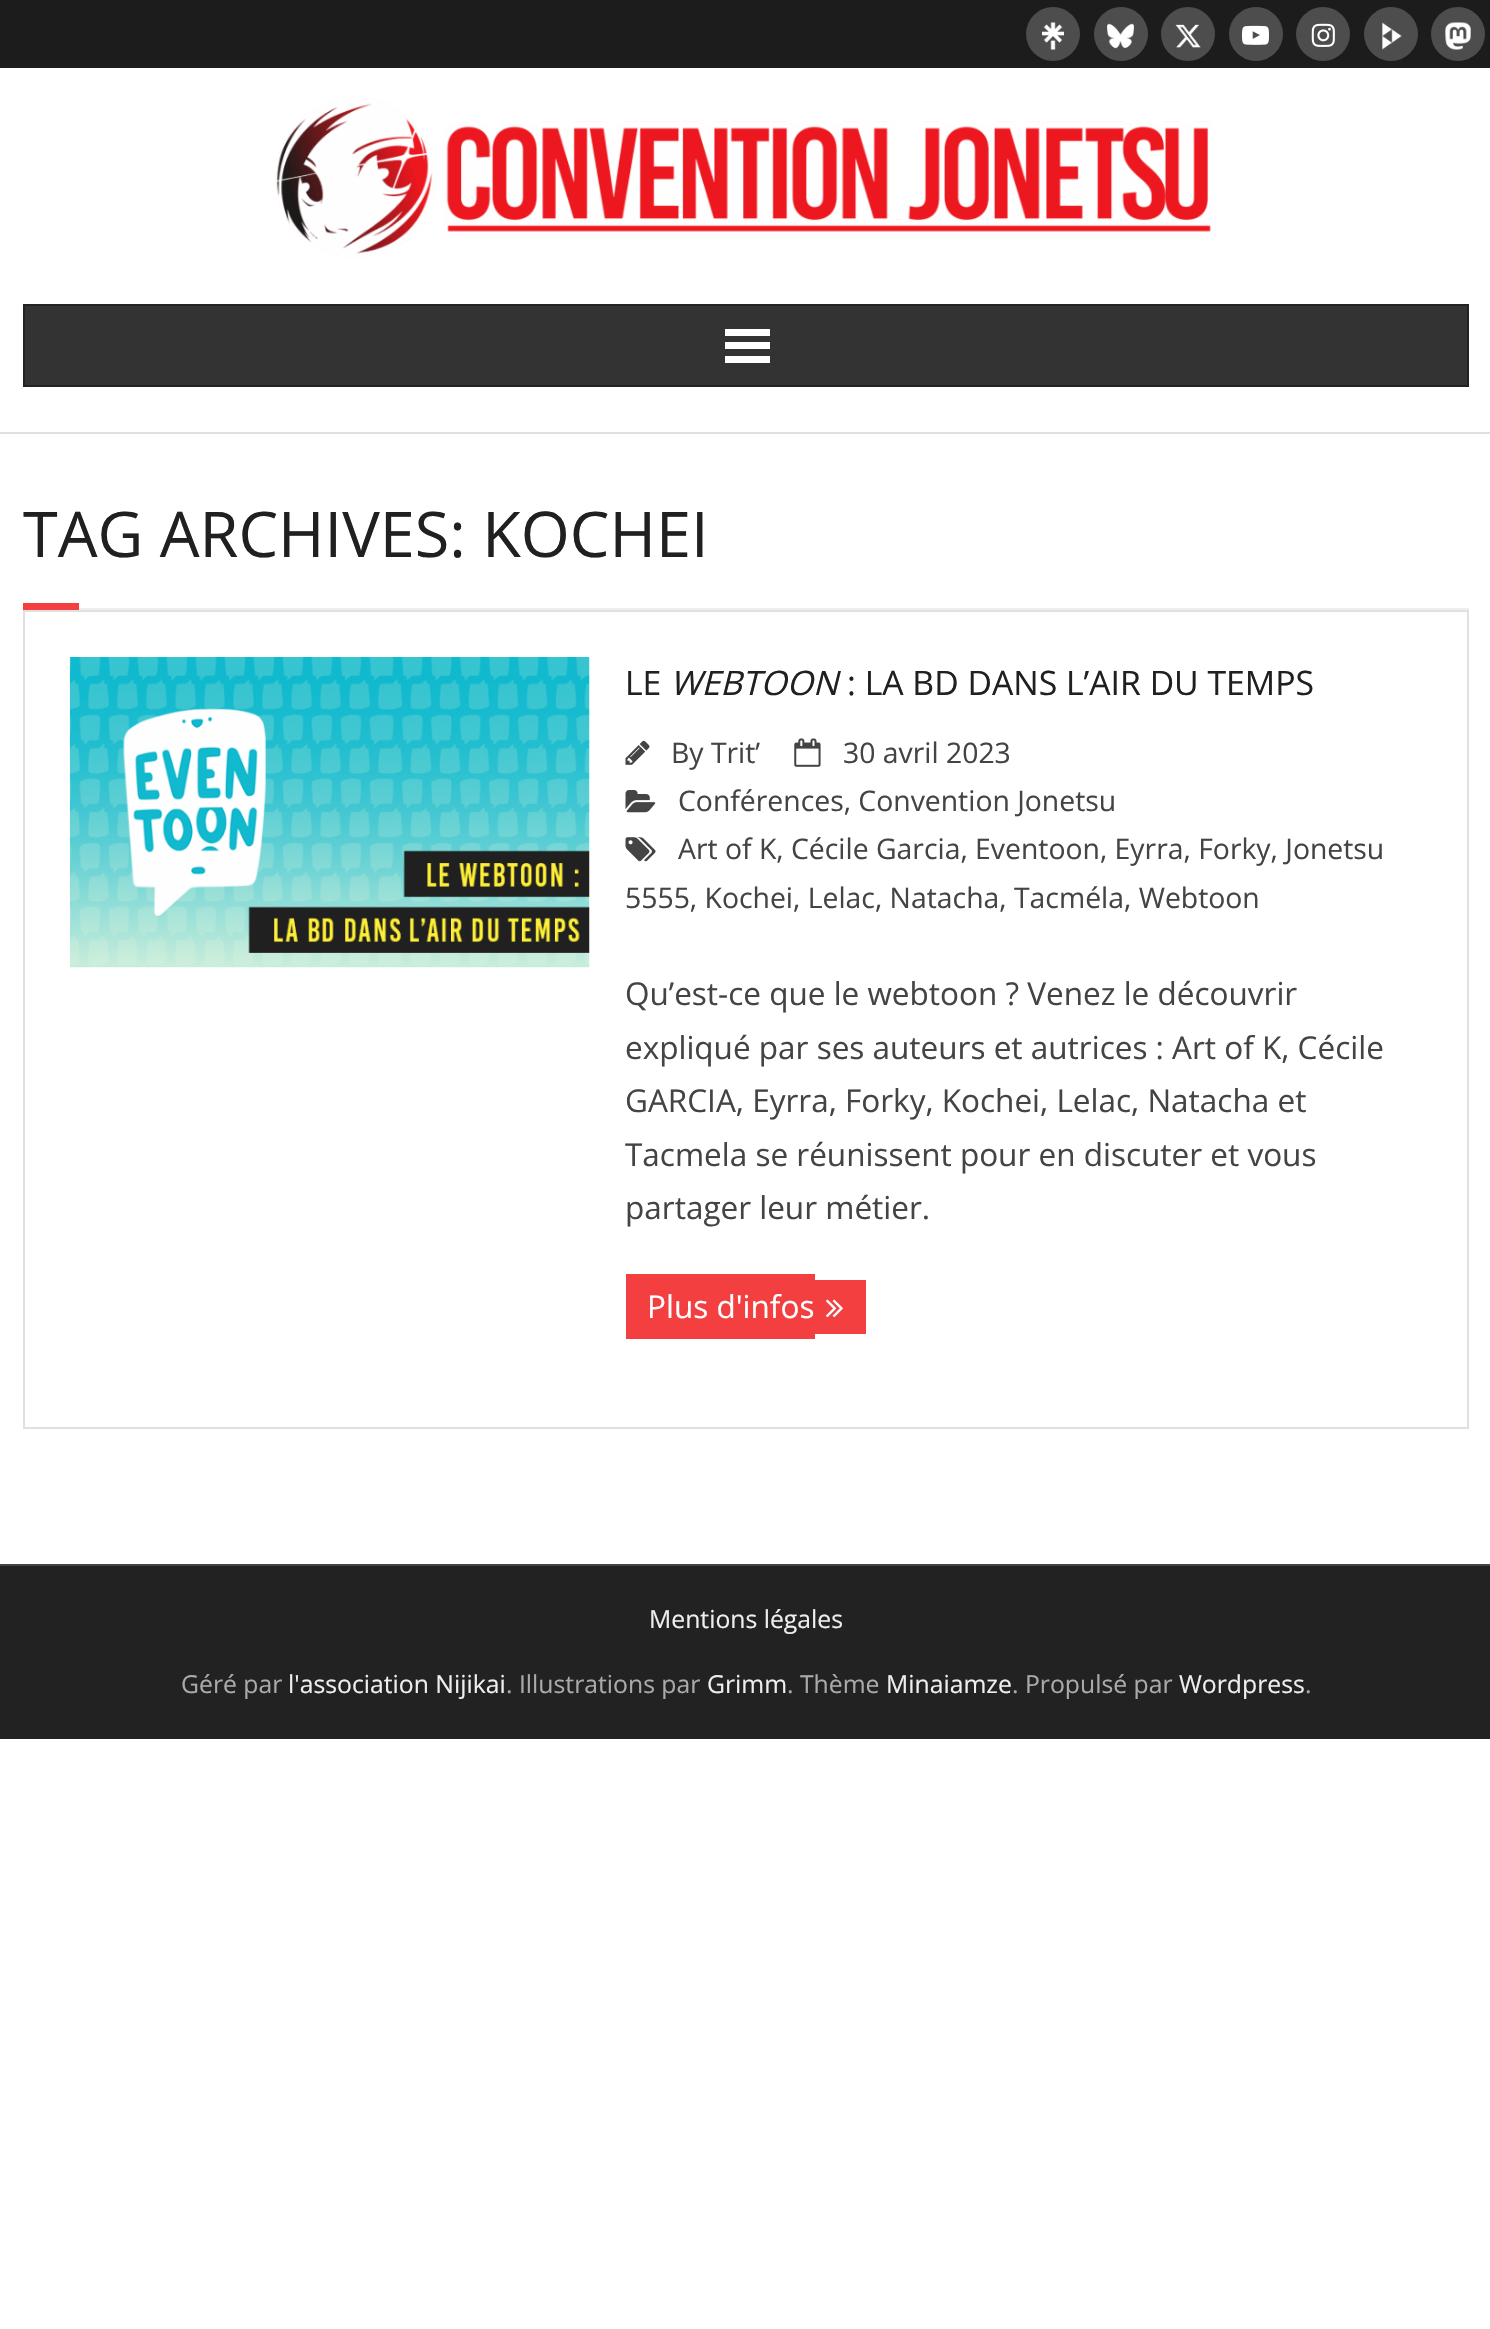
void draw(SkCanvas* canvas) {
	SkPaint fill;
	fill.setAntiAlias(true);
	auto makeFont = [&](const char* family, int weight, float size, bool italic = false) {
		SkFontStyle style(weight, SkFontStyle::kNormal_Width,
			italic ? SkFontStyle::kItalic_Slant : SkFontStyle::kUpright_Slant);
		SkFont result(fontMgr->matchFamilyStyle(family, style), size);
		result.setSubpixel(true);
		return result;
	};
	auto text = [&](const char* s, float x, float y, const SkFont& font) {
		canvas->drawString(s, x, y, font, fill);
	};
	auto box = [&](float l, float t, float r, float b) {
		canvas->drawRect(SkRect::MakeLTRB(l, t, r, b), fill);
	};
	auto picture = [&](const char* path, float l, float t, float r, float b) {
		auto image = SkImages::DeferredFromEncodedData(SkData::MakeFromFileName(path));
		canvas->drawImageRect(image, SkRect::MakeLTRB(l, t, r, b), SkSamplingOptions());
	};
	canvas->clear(0xFFFFFFFF);
	fill.setColor(0xFF1C1C1C);
	box(0, 0, 1490, 68);
	fill.setColor(0xFF4D4D4D);
	canvas->drawCircle(1053, 34, 27, fill);
	picture("image0.png", 1042, 22, 1064, 50);
	canvas->drawCircle(1121, 34, 27, fill);
	picture("image1.png", 1107, 23, 1134, 49);
	canvas->drawCircle(1188, 34, 27, fill);
	picture("image2.png", 1175, 24, 1201, 48);
	canvas->drawCircle(1256, 34, 27, fill);
	picture("image3.png", 1242, 25, 1269, 45);
	canvas->drawCircle(1323, 34, 27, fill);
	picture("image4.png", 1311, 23, 1335, 47);
	canvas->drawCircle(1391, 34, 27, fill);
	picture("image5.png", 1382, 22, 1402, 50);
	canvas->drawCircle(1458, 34, 27, fill);
	picture("image6.png", 1445, 22, 1471, 50);
	fill.setColor(0xFFE0E0E0);
	box(0, 432, 1490, 434);
	picture("image7.png", 275, 96, 1216, 259);
	fill.setColor(0xFF333333);
	canvas->drawRect(SkRect::MakeLTRB(24, 305, 1468, 386), fill);
	fill.setStyle(SkPaint::kStroke_Style);
	fill.setStrokeWidth(2);
	fill.setColor(0xFF222222);
	canvas->drawRect(SkRect::MakeLTRB(24, 305, 1468, 386), fill);
	fill.setStyle(SkPaint::kFill_Style);
	fill.setColor(0xFFFFFFFF);
	box(725, 329, 770, 336);
	box(725, 342, 770, 349);
	box(725, 356, 770, 363);
	fill.setColor(0xFFF33F3F);
	box(23, 603, 79, 610);
	fill.setColor(0xFFEEEEEE);
	box(79, 608, 1469, 610);
	fill.setStyle(SkPaint::kStroke_Style);
	fill.setColor(0xFFE0E0E0);
	canvas->drawRect(SkRect::MakeLTRB(24, 611, 1468, 1428), fill);
	picture("image8.png", 69, 657, 590, 968);
	picture("image9.png", 625, 740, 650, 765);
	picture("image10.png", 794, 738, 821, 767);
	picture("image11.png", 625, 790, 656, 813);
	picture("image12.png", 625, 837, 656, 862);
	fill.setStyle(SkPaint::kFill_Style);
	fill.setColor(0xFFF33F3F);
	box(626, 1274, 815, 1339);
	box(815, 1280, 866, 1334);
	picture("image13.png", 826, 1299, 843, 1318);
	fill.setColor(0xFF222222);
	box(0, 1566, 1490, 1739);
	fill.setColor(0xFF444444);
	box(0, 1564, 1490, 1566);
	auto font1 = makeFont("Open Sans", 400, 63);
	fill.setColor(0xFF202020);
	text("TAG ARCHIVES: KOCHEI", 23, 557, font1);
	auto font2 = makeFont("Open Sans", 400, 33.75f);
	text("LE", 625, 695, font2);
	auto font3 = makeFont("Open Sans", 400, 33.75f, true);
	text("WEBTOON", 670, 695, font3);
	text(": LA BD DANS L’AIR DU TEMPS", 847, 695, font2);
	auto font4 = makeFont("Open Sans", 400, 28.35f);
	fill.setColor(0xFF444444);
	text("By Trit’", 671, 763, font4);
	text("30 avril 2023", 843, 763, font4);
	text("Conférences, Convention Jonetsu", 678, 811, font4);
	text("Art of K, Cécile Garcia, Eventoon, Eyrra, Forky, Jonetsu", 678, 859, font4);
	text("5555, Kochei, Lelac, Natacha, Tacméla, Webtoon", 625, 908, font4);
	auto font5 = makeFont("Open Sans", 400, 31.5f);
	text("Qu’est-ce que le webtoon ? Venez le découvrir", 625, 1005, font5);
	text("expliqué par ses auteurs et autrices : Art of K, Cécile", 625, 1059, font5);
	text("GARCIA, Eyrra, Forky, Kochei, Lelac, Natacha et", 625, 1112, font5);
	text("Tacmela se réunissent pour en discuter et vous", 625, 1166, font5);
	text("partager leur métier.", 625, 1219, font5);
	fill.setColor(0xFFFFFFFF);
	text("Plus d'infos", 647, 1318, font5);
	auto font6 = makeFont("Open Sans", 400, 24.75f);
	fill.setColor(0xFFEEEEEE);
	text("Mentions légales", 649, 1628, font6);
	fill.setColor(0xFFAAAAAA);
	text("Géré par", 181, 1693, font6);
	fill.setColor(0xFFEEEEEE);
	text("l'association Nijikai", 288, 1693, font6);
	fill.setColor(0xFFAAAAAA);
	text(". Illustrations par", 506, 1693, font6);
	fill.setColor(0xFFEEEEEE);
	text("Grimm", 707, 1693, font6);
	fill.setColor(0xFFAAAAAA);
	text(". Thème", 787, 1693, font6);
	fill.setColor(0xFFEEEEEE);
	text("Minaiamze", 886, 1693, font6);
	fill.setColor(0xFFAAAAAA);
	text(". Propulsé par", 1012, 1693, font6);
	fill.setColor(0xFFEEEEEE);
	text("Wordpress", 1179, 1693, font6);
	fill.setColor(0xFFAAAAAA);
	text(".", 1305, 1693, font6);
}
